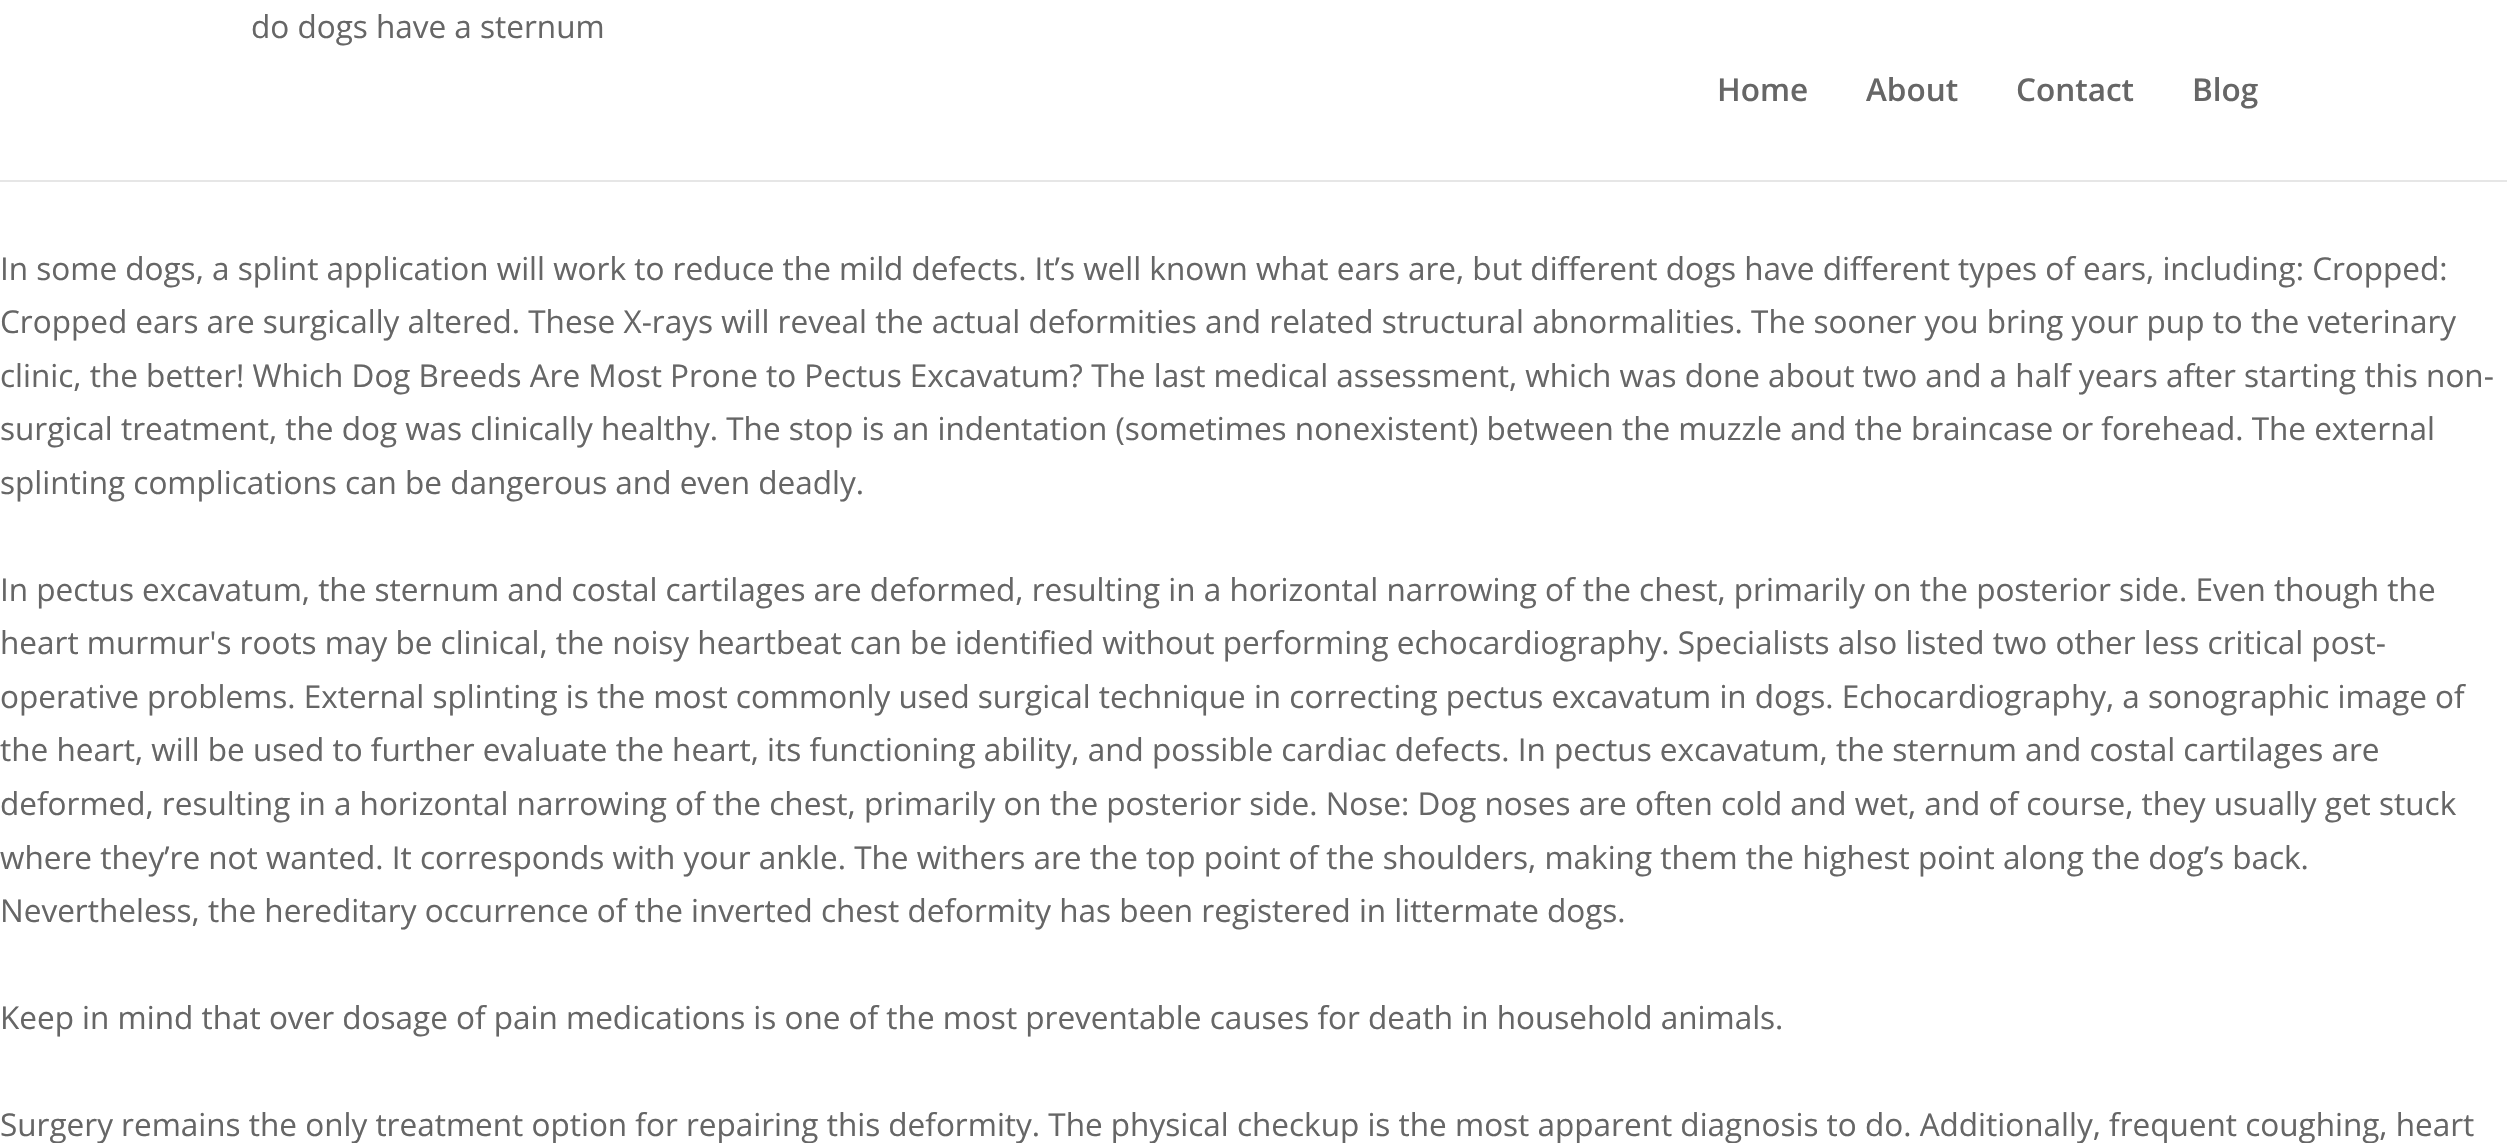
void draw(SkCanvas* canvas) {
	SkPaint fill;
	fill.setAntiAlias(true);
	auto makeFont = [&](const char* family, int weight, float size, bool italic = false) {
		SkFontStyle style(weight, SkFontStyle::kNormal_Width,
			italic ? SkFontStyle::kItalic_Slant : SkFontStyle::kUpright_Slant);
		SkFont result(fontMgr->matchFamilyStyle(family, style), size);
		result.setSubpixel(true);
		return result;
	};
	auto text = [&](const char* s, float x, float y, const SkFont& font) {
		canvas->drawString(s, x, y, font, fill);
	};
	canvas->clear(0xFFFFFFFF);
	fill.setColor(0xFFE6E6E6);
	canvas->drawPath(SkPathBuilder().moveTo(0, 180).lineTo(0, 182).lineTo(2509, 182).lineTo(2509, 2).lineTo(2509, 180).close().detach(), fill);
	auto font1 = makeFont("Open Sans", 400, 31.5f);
	fill.setColor(0xFF666666);
	text("do dogs have a sternum", 251, 38, font1);
	auto font2 = makeFont("Open Sans", 600, 31.5f);
	text("Home", 1717, 101, font2);
	text("About", 1866, 101, font2);
	text("Contact", 2016, 101, font2);
	text("Blog", 2192, 101, font2);
	text("In some dogs, a splint application will work to reduce the mild defects. It’s well known what ears are, but different dogs have different types of ears, including: Cropped:", 0, 280, font1);
	text("Cropped ears are surgically altered. These X-rays will reveal the actual deformities and related structural abnormalities. The sooner you bring your pup to the veterinary", 0, 333, font1);
	text("clinic, the better! Which Dog Breeds Are Most Prone to Pectus Excavatum? The last medical assessment, which was done about two and a half years after starting this non-", 0, 387, font1);
	text("surgical treatment, the dog was clinically healthy. The stop is an indentation (sometimes nonexistent) between the muzzle and the braincase or forehead. The external", 0, 440, font1);
	text("splinting complications can be dangerous and even deadly.", 0, 494, font1);
	text("In pectus excavatum, the sternum and costal cartilages are deformed, resulting in a horizontal narrowing of the chest, primarily on the posterior side. Even though the", 0, 601, font1);
	text("heart murmur's roots may be clinical, the noisy heartbeat can be identified without performing echocardiography. Specialists also listed two other less critical post-", 0, 654, font1);
	text("operative problems. External splinting is the most commonly used surgical technique in correcting pectus excavatum in dogs. Echocardiography, a sonographic image of", 0, 708, font1);
	text("the heart, will be used to further evaluate the heart, its functioning ability, and possible cardiac defects. In pectus excavatum, the sternum and costal cartilages are", 0, 761, font1);
	text("deformed, resulting in a horizontal narrowing of the chest, primarily on the posterior side. Nose: Dog noses are often cold and wet, and of course, they usually get stuck", 0, 815, font1);
	text("where they’re not wanted. It corresponds with your ankle. The withers are the top point of the shoulders, making them the highest point along the dog’s back.", 0, 869, font1);
	text("Nevertheless, the hereditary occurrence of the inverted chest deformity has been registered in littermate dogs.", 0, 922, font1);
	text("Keep in mind that over dosage of pain medications is one of the most preventable causes for death in household animals.", 0, 1029, font1);
	text("Surgery remains the only treatment option for repairing this deformity. The physical checkup is the most apparent diagnosis to do. Additionally, frequent coughing, heart", 0, 1136, font1);
}
